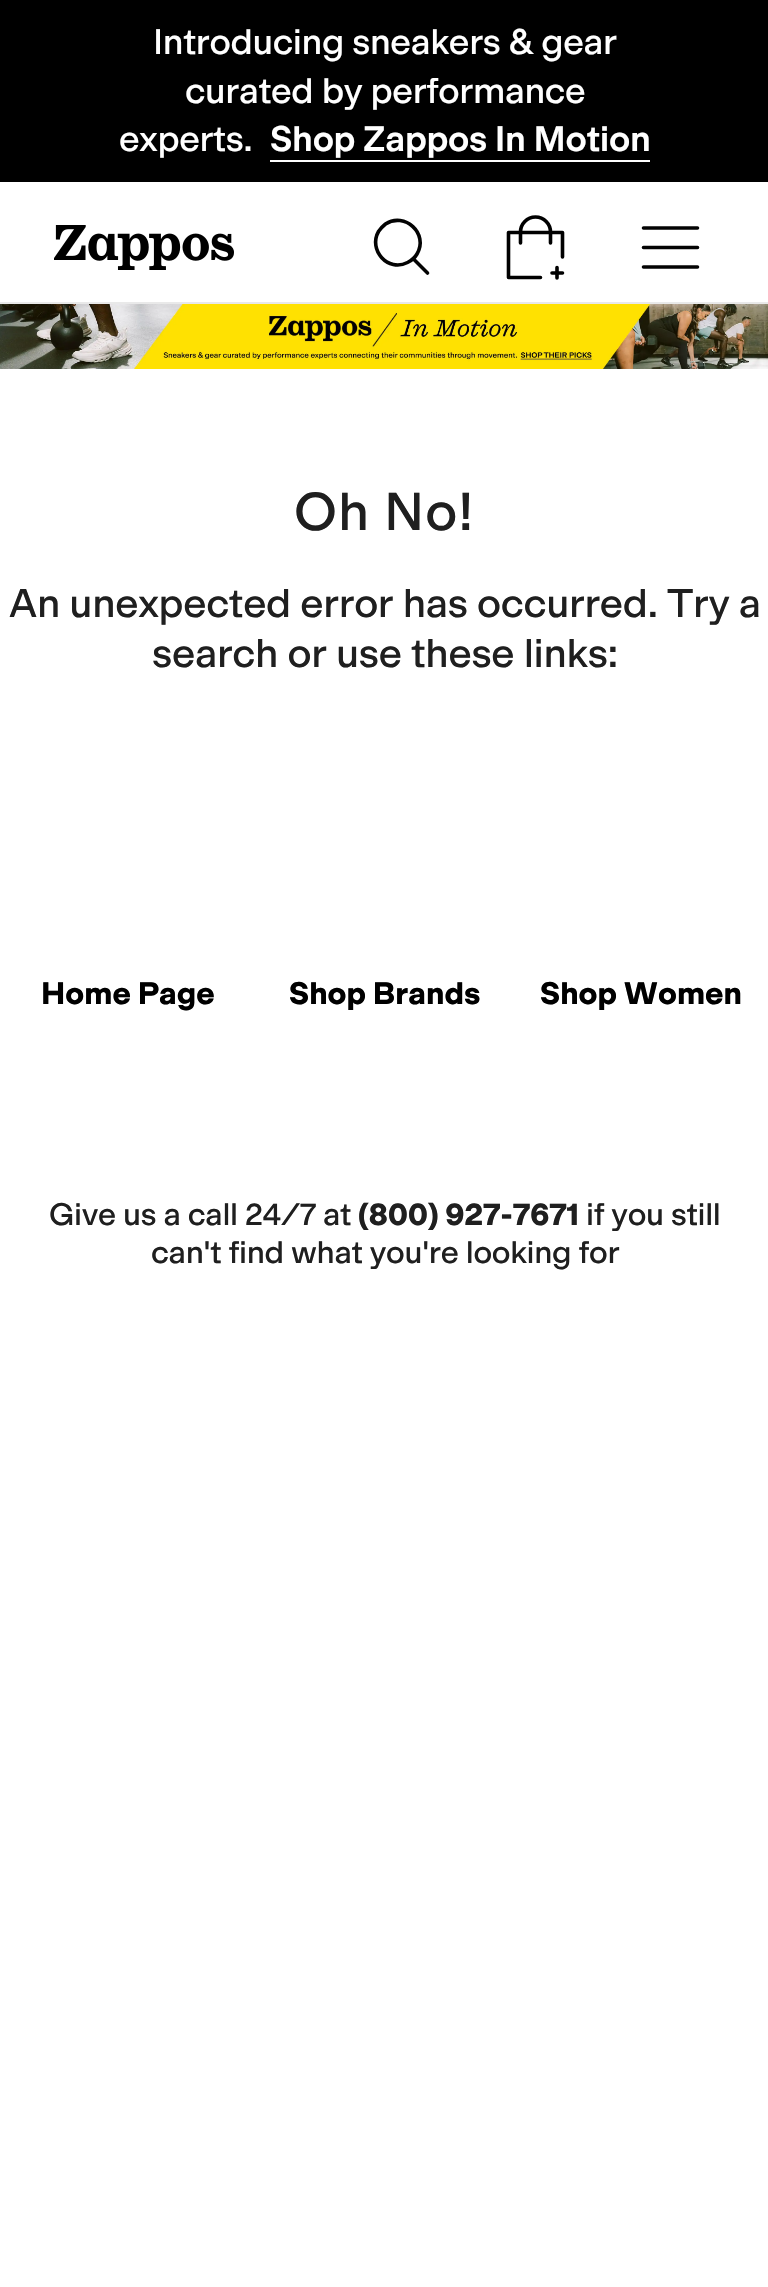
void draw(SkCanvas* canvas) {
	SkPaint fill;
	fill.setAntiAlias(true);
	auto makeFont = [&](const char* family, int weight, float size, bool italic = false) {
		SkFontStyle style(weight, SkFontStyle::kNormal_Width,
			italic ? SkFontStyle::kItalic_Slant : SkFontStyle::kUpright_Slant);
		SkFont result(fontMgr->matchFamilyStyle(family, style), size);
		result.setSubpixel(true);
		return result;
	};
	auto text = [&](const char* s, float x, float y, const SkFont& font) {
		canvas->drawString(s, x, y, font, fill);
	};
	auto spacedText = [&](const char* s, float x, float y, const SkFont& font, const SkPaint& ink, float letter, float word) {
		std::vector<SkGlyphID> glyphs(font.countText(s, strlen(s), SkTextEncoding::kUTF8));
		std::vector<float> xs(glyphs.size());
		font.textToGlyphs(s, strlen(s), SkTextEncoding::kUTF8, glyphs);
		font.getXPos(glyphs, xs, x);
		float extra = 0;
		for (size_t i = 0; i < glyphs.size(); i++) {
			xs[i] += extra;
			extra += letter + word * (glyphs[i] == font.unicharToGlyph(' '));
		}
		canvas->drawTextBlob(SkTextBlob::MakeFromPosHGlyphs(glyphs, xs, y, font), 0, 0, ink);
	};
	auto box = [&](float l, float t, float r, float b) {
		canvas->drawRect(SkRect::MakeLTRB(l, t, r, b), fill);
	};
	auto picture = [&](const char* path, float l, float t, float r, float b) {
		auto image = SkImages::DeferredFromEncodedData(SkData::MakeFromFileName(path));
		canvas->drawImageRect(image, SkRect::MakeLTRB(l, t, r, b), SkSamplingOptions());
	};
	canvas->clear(0xFFFFFFFF);
	fill.setColor(0xFF000000);
	box(0, 0, 768, 182);
	fill.setColor(0xFFFFFFFF);
	box(270, 160, 650, 162);
	fill.setColor(0xFFE9E9E9);
	box(0, 302, 768, 304);
	picture("image0.png", 54, 225, 234, 270);
	fill.setStyle(SkPaint::kStroke_Style);
	fill.setStrokeWidth(3.6f);
	fill.setStrokeCap(SkPaint::kRound_Cap);
	fill.setStrokeJoin(SkPaint::kRound_Join);
	fill.setColor(0xFF030303);
	canvas->drawPath(SkPathBuilder().moveTo(378.5f, 231.5f).cubicTo(368, 250, 388, 272.5f, 407.5f, 262.5f).cubicTo(411.5f, 260.5f, 415, 257.5f, 417, 254).cubicTo(429, 233.5f, 404.5f, 211.5f, 385.5f, 224).cubicTo(383, 226, 380.5f, 228.5f, 378.5f, 231.5f).detach(), fill);
	fill.setStrokeJoin(SkPaint::kMiter_Join);
	canvas->drawPath(SkPathBuilder().moveTo(413.5f, 259).lineTo(427.5f, 273).detach(), fill);
	fill.setStrokeJoin(SkPaint::kRound_Join);
	fill.setColor(0xFF000000);
	canvas->drawPath(SkPathBuilder().moveTo(550.5f, 243).lineTo(550.5f, 232).cubicTo(550.5f, 224, 544, 217, 535.5f, 217).cubicTo(527, 217, 520.5f, 224, 520.5f, 232).lineTo(520.5f, 243).moveTo(552, 273).lineTo(562.5f, 273).moveTo(557, 267.5f).lineTo(557, 278).detach(), fill);
	canvas->drawPath(SkPathBuilder().moveTo(562.5f, 257).lineTo(562.5f, 232.5f).lineTo(508.5f, 232.5f).lineTo(508.5f, 277.5f).lineTo(540.5f, 277.5f).detach(), fill);
	fill.setStrokeJoin(SkPaint::kMiter_Join);
	fill.setColor(0xFF030303);
	canvas->drawPath(SkPathBuilder().moveTo(643.5f, 267).lineTo(697.5f, 267).moveTo(643.5f, 247.5f).lineTo(697.5f, 247.5f).moveTo(643.5f, 228).lineTo(697.5f, 228).detach(), fill);
	picture("image1.png", 0, 304, 768, 369);
	auto font1 = makeFont("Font", 400, 36);
	fill.setStyle(SkPaint::kFill_Style);
	fill.setColor(0xFFFFFFFF);
	spacedText("Introducing sneakers & gear", 153, 54, font1, fill, -0.35f, 0);
	spacedText("curated by performance", 185, 103, font1, fill, -0.35f, 0);
	spacedText("experts.", 119, 151, font1, fill, -0.35f, 0);
	auto font2 = makeFont("Font", 500, 36);
	spacedText("Shop Zappos In Motion", 270, 151, font2, fill, -0.35f, 0);
	auto font3 = makeFont("Font", 400, 54);
	fill.setColor(0xFF1F1F1F);
	spacedText("Oh No!", 294, 530, font3, fill, 1, 0);
	auto font4 = makeFont("Font", 400, 40.5f);
	spacedText("An unexpected error has occurred. Try a", 9, 617, font4, fill, -0.3f, 0);
	spacedText("search or use these links:", 152, 667, font4, fill, -0.3f, 0);
	auto font5 = makeFont("Font", 700, 31.5f);
	fill.setColor(0xFF000000);
	text("Home Page", 41, 1004, font5);
	text("Shop Brands", 289, 1004, font5);
	text("Shop Women", 540, 1004, font5);
	auto font6 = makeFont("Font", 400, 31.5f);
	fill.setColor(0xFF1F1F1F);
	spacedText("Give us a call 24/7 at", 49, 1225, font6, fill, -0.3f, 0);
	spacedText("(800) 927-7671", 358, 1225, font5, fill, -0.3f, 0);
	spacedText("if you still", 586, 1225, font6, fill, -0.3f, 0);
	spacedText("can't find what you're looking for", 151, 1263, font6, fill, -0.3f, 0);
}
